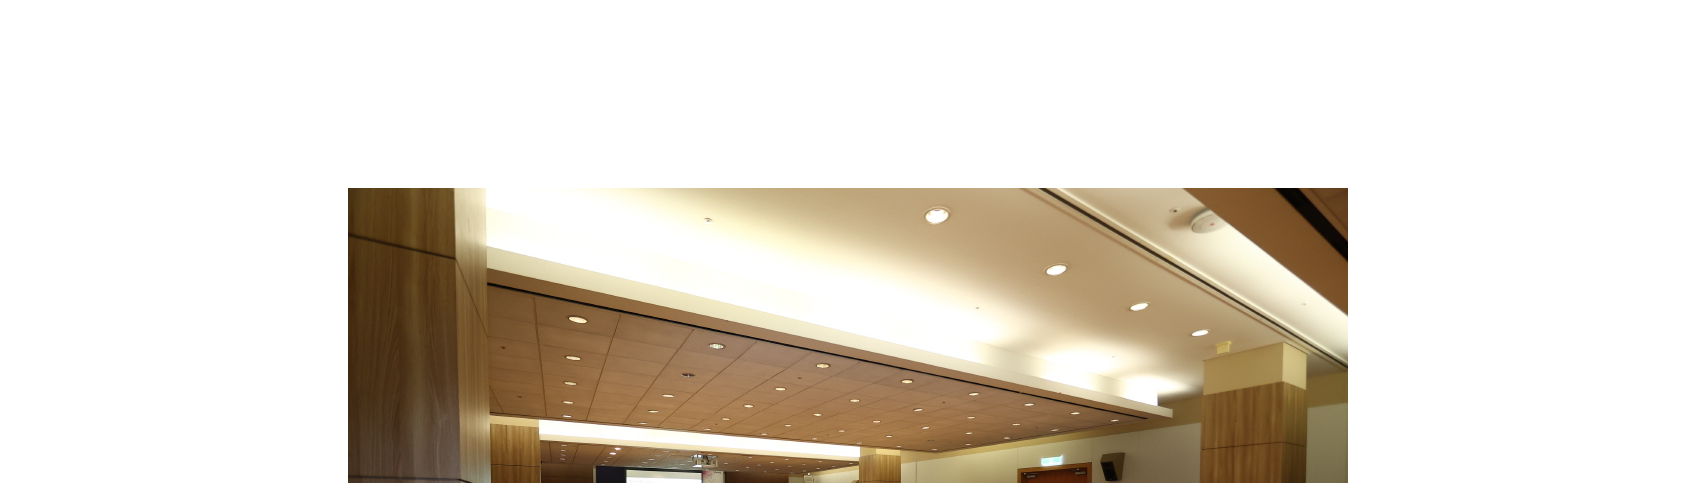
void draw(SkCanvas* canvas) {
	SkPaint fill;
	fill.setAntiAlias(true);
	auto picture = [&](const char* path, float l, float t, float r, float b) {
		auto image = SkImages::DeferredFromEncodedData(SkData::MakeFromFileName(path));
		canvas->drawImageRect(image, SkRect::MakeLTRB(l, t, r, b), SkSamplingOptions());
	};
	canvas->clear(0xFFFFFFFF);
	picture("image0.png", 348, 188, 1348, 483);
}
